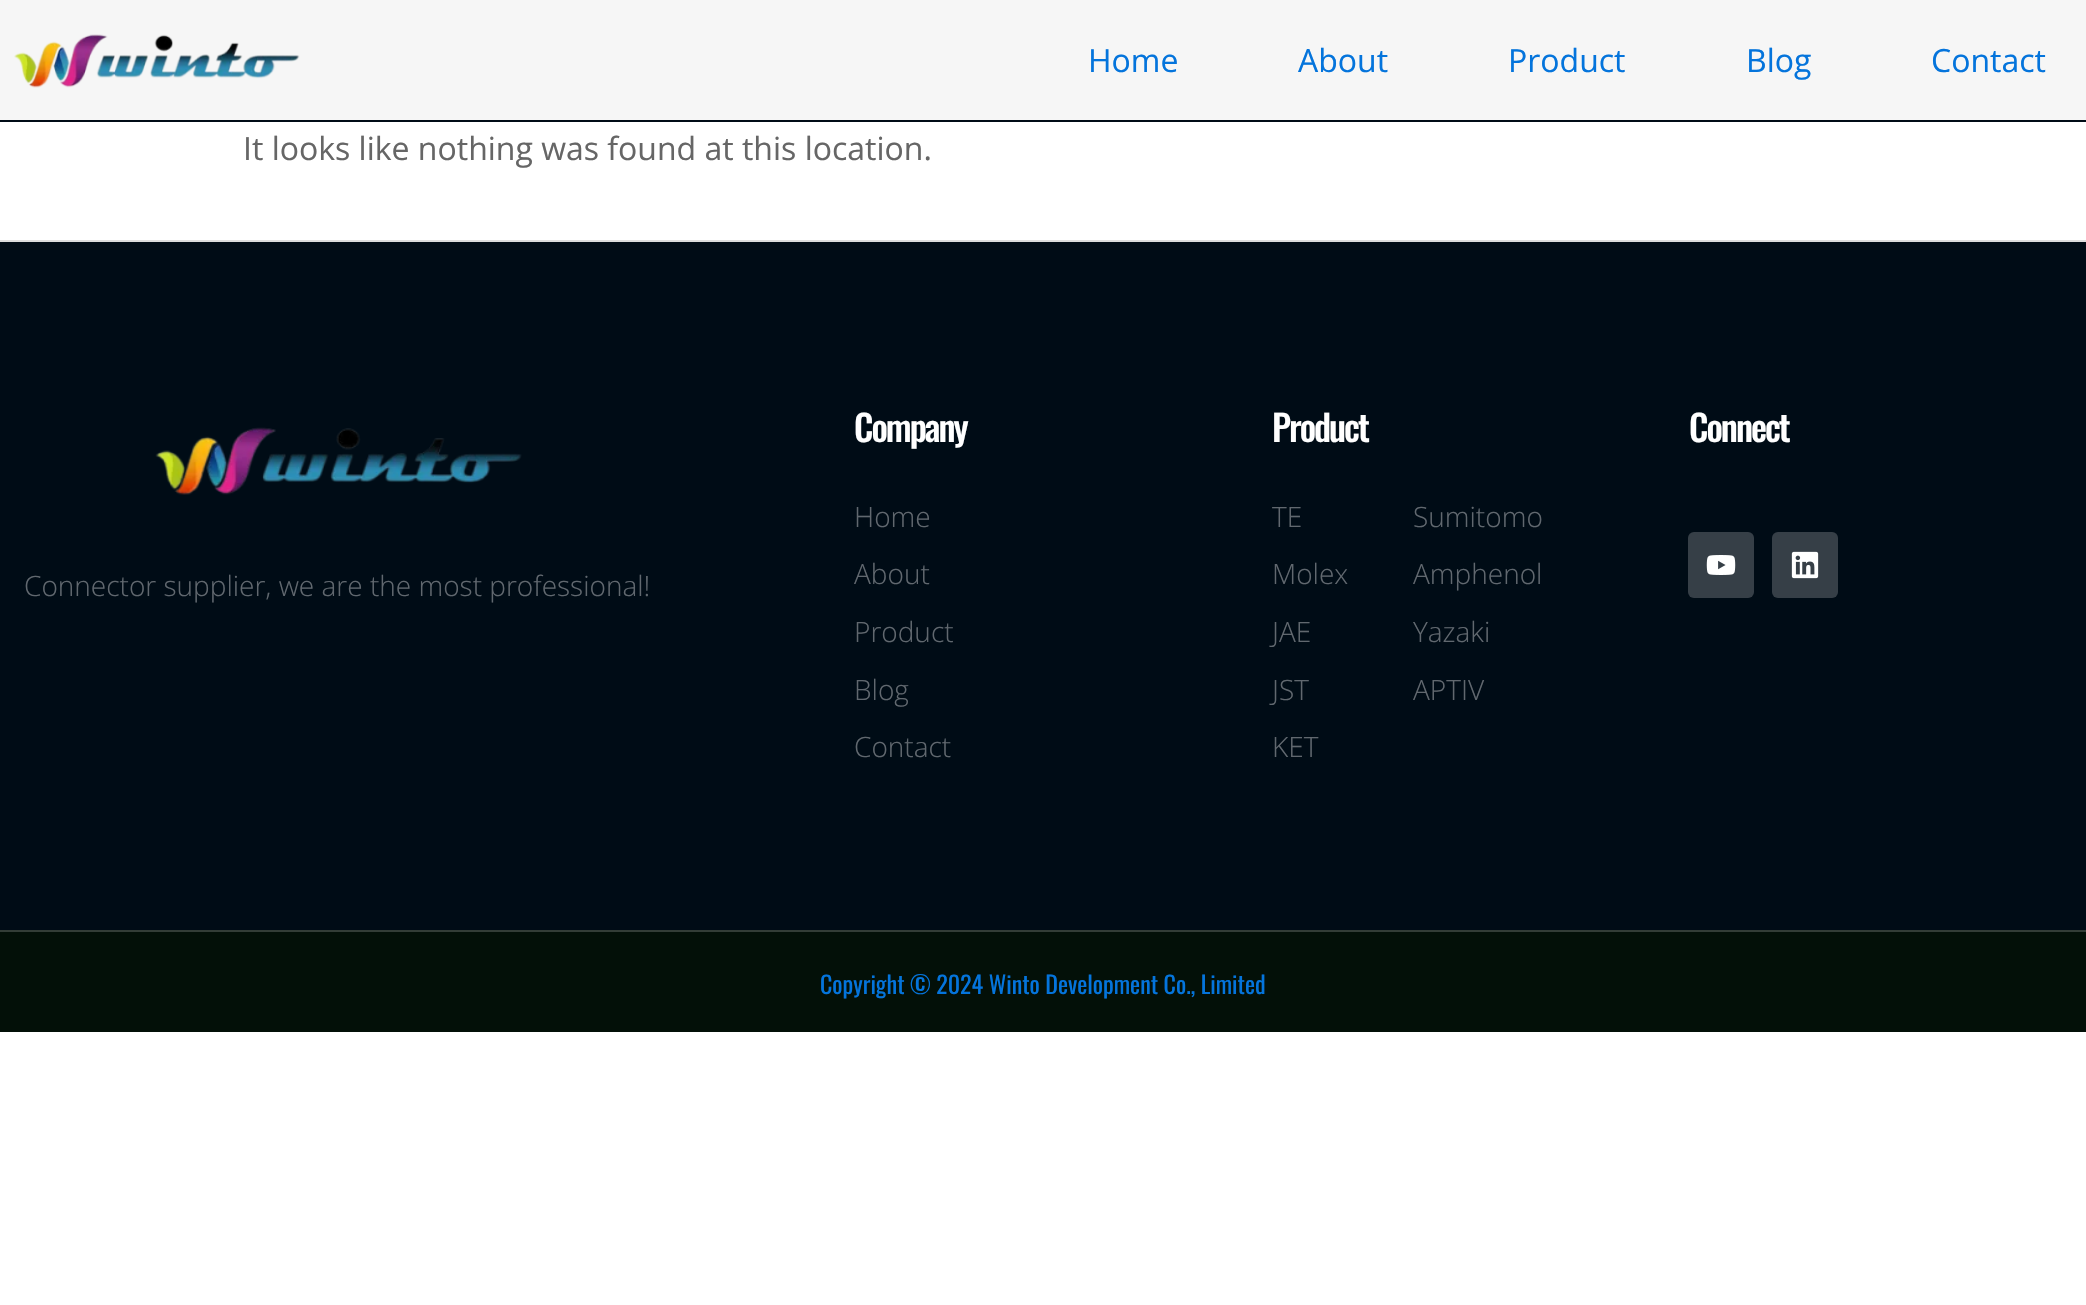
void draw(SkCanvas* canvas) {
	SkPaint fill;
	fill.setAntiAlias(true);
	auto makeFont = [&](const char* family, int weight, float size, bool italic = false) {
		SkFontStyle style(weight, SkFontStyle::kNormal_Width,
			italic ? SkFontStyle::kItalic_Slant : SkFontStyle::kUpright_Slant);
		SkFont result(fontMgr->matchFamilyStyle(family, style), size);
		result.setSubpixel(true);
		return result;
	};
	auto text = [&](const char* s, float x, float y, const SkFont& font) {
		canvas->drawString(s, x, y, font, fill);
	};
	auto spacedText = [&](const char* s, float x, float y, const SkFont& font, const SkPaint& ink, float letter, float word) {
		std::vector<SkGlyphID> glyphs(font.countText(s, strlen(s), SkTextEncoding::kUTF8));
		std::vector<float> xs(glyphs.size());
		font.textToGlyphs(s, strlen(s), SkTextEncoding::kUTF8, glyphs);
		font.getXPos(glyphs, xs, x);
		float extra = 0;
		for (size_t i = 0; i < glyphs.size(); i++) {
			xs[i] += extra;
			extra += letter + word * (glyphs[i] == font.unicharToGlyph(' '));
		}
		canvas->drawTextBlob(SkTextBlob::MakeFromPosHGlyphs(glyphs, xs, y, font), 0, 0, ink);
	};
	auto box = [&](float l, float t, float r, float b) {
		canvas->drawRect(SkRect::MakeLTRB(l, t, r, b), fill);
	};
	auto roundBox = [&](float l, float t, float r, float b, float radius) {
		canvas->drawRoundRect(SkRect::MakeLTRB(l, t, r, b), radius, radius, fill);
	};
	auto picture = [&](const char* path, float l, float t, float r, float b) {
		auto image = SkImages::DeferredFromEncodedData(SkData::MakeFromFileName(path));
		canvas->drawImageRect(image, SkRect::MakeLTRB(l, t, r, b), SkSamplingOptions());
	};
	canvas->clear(0xFFFFFFFF);
	fill.setColor(0xFFF6F6F6);
	box(0, 0, 2086, 120);
	fill.setColor(0xFF000C16);
	box(0, 120, 2086, 122);
	picture("image0.png", 14, 34, 300, 88);
	box(0, 242, 2086, 930);
	fill.setColor(0xFFDDDDDD);
	box(0, 240, 2086, 242);
	fill.setColor(0xFF363F47);
	roundBox(1688, 532, 1754, 598, 6);
	picture("image1.png", 1706, 555, 1736, 575);
	roundBox(1772, 532, 1838, 598, 6);
	picture("image2.png", 1791, 551, 1819, 579);
	picture("image3.png", 155, 427, 522, 495);
	fill.setColor(0xFF031008);
	box(0, 932, 2086, 1032);
	fill.setColor(0xFF333D37);
	box(0, 930, 2086, 932);
	auto font1 = makeFont("Open Sans", 400, 32);
	fill.setColor(0xFF0474DC);
	text("Home", 1088, 72, font1);
	text("About", 1298, 72, font1);
	text("Product", 1508, 72, font1);
	text("Blog", 1746, 72, font1);
	text("Contact", 1931, 72, font1);
	fill.setColor(0xFF666666);
	text("It looks like nothing was found at this location.", 243, 160, font1);
	auto font2 = makeFont("Oswald", 500, 36);
	fill.setColor(0xFFFFFFFF);
	spacedText("Company", 854, 442, font2, fill, -2, 0);
	auto font3 = makeFont("Open Sans", 300, 28);
	fill.setColor(0xFF61686F);
	text("Home", 854, 527, font3);
	text("About", 854, 584, font3);
	text("Product", 854, 642, font3);
	text("Blog", 854, 700, font3);
	text("Contact", 854, 757, font3);
	fill.setColor(0xFFFFFFFF);
	spacedText("Product", 1272, 442, font2, fill, -2, 0);
	fill.setColor(0xFF61686F);
	text("TE", 1272, 527, font3);
	text("Molex", 1272, 584, font3);
	text("JAE", 1272, 642, font3);
	text("JST", 1272, 700, font3);
	text("KET", 1272, 757, font3);
	text("Sumitomo", 1413, 527, font3);
	text("Amphenol", 1413, 584, font3);
	text("Yazaki", 1413, 642, font3);
	text("APTIV", 1413, 700, font3);
	fill.setColor(0xFFFFFFFF);
	spacedText("Connect", 1689, 442, font2, fill, -2, 0);
	fill.setColor(0xFF61686F);
	text("Connector supplier, we are the most professional!", 24, 596, font3);
	auto font4 = makeFont("Oswald", 400, 24);
	fill.setColor(0xFF0474DC);
	text("Copyright © 2024 Winto Development Co., Limited", 820, 994, font4);
}
